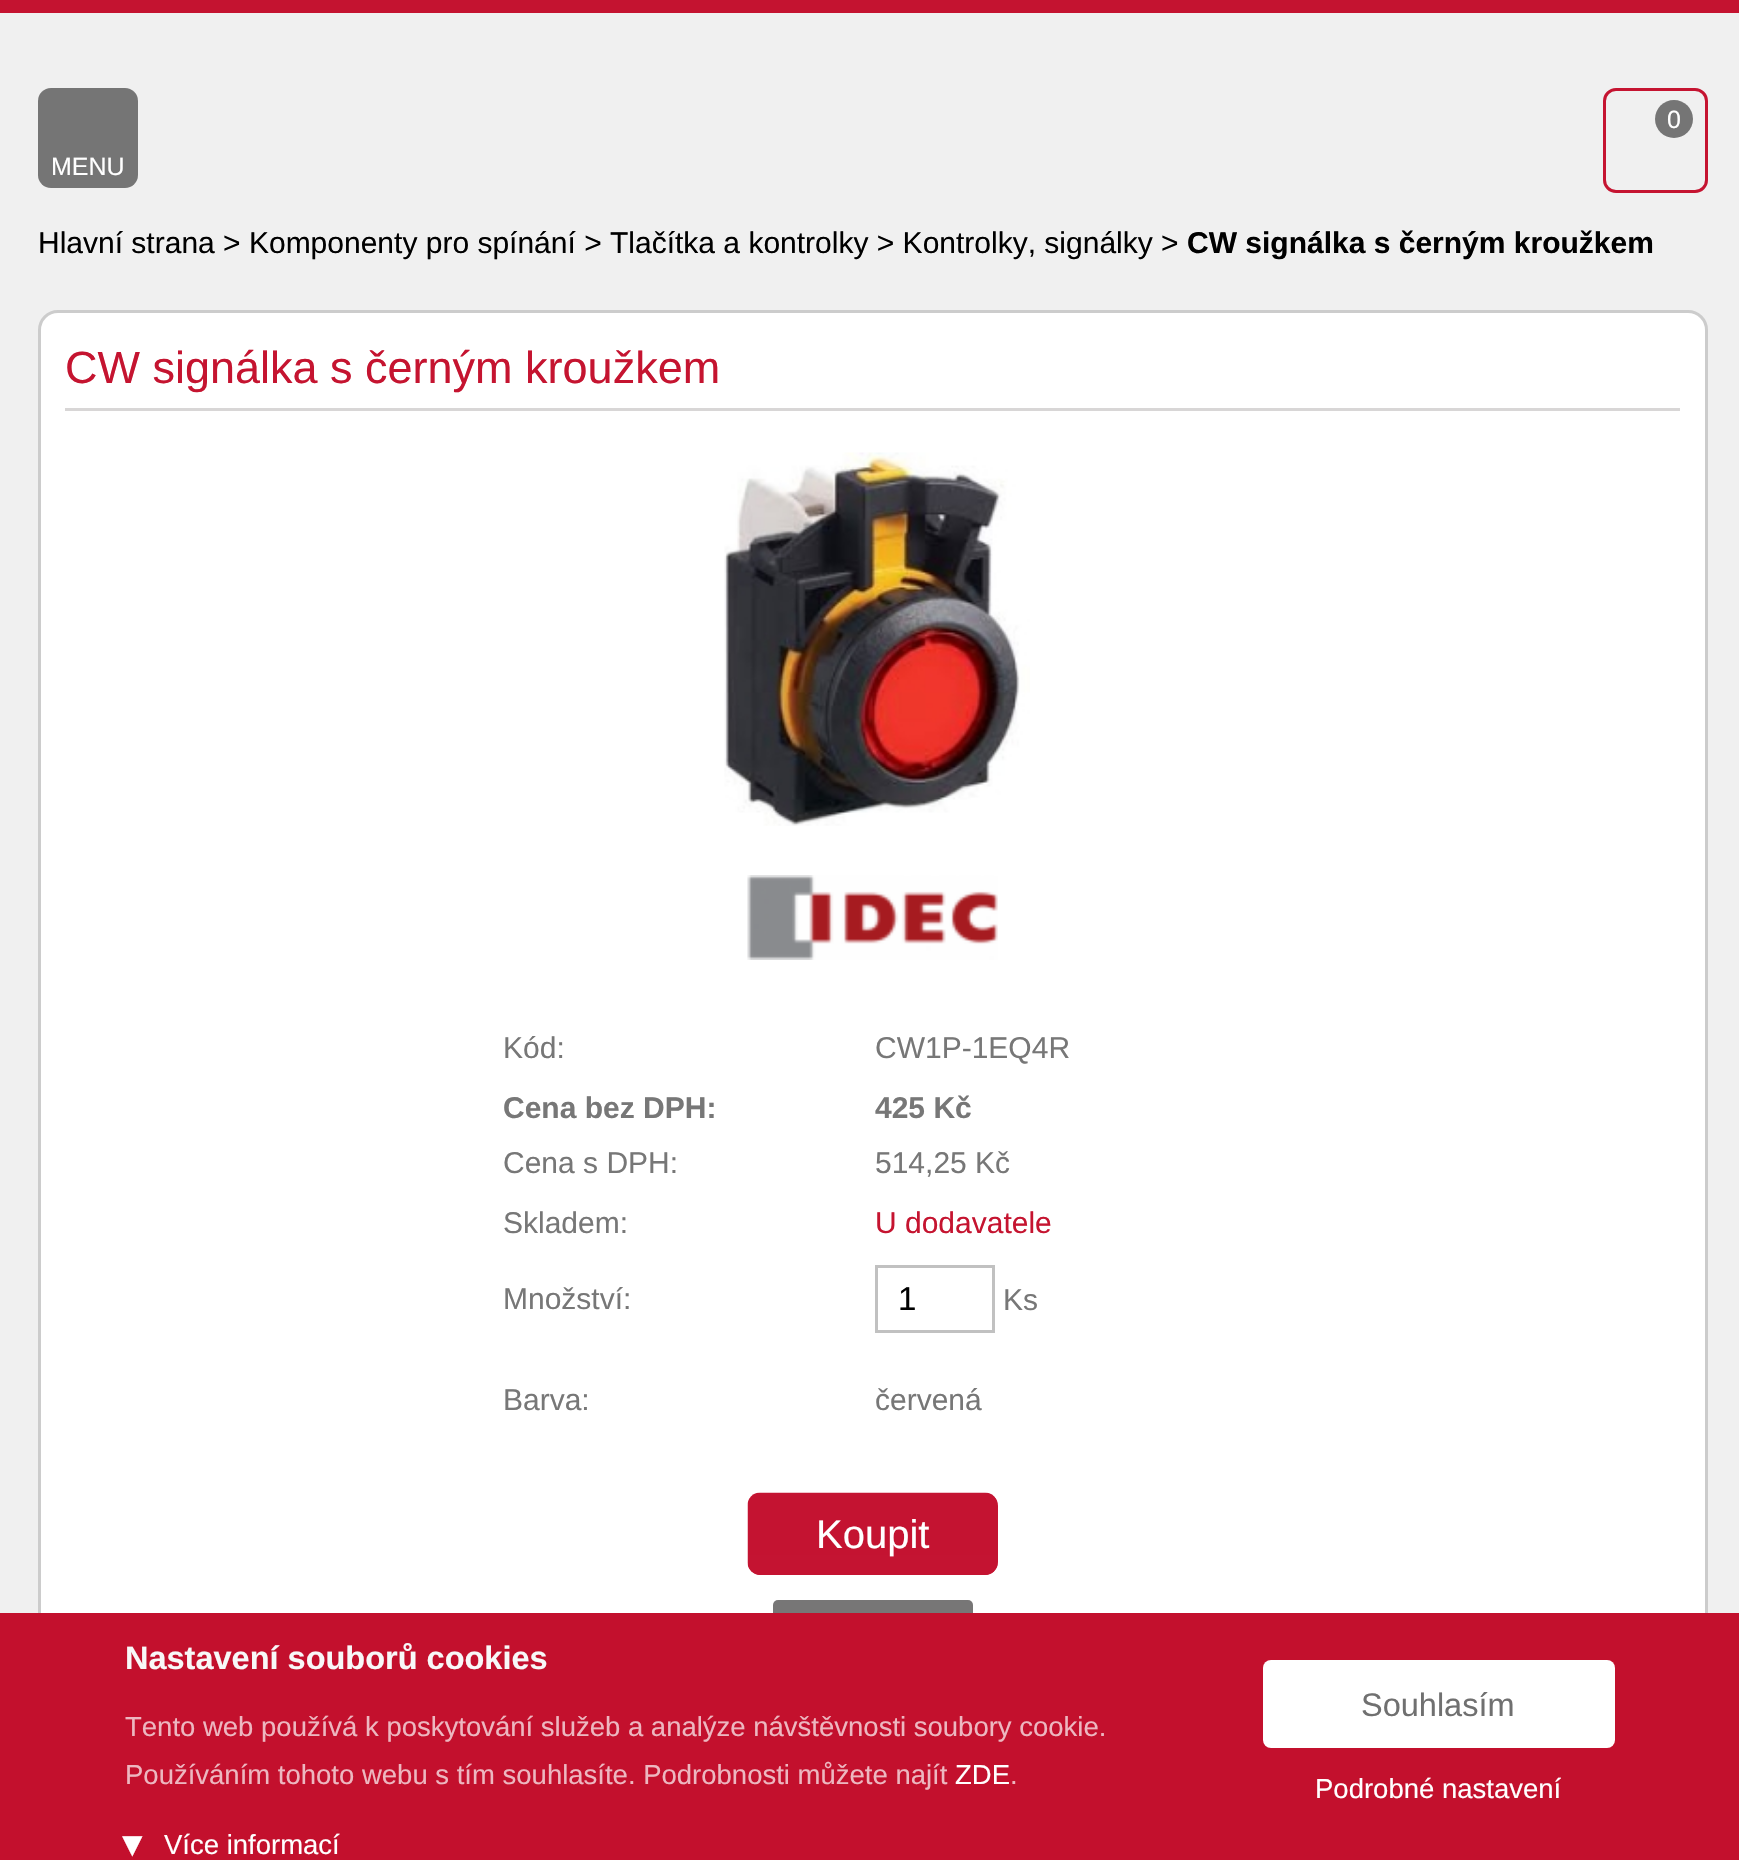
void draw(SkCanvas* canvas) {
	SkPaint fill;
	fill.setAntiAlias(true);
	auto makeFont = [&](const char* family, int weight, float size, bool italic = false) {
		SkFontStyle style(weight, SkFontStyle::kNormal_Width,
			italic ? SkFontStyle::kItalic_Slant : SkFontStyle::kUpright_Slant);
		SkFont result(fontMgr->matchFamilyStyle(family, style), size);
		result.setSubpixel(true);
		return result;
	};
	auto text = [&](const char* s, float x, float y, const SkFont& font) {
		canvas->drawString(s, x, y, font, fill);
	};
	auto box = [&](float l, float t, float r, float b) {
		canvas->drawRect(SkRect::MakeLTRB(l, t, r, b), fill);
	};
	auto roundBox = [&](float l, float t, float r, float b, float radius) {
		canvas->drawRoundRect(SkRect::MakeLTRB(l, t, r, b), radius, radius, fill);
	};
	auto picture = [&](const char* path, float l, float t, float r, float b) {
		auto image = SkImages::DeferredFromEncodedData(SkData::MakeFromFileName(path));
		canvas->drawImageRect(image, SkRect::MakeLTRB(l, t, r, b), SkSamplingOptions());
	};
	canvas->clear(0xFFF0F0F0);
	fill.setColor(0xFFC41330);
	box(0, 0, 1739, 13);
	fill.setStyle(SkPaint::kStroke_Style);
	fill.setStrokeWidth(3);
	fill.setColor(0xFFC51431);
	canvas->drawRoundRect(SkRect::MakeLTRB(1604.5f, 89.5f, 1706.5f, 191.5f), 11.5f, 11.5f, fill);
	fill.setStyle(SkPaint::kFill_Style);
	fill.setColor(0xFF757575);
	canvas->drawCircle(1674, 119, 19, fill);
	roundBox(38, 88, 138, 188, 13);
	fill.setColor(0xFFFFFFFF);
	canvas->drawRoundRect(SkRect::MakeLTRB(39.5f, 311.5f, 1706.5f, 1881.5f), 18.5f, 18.5f, fill);
	fill.setStyle(SkPaint::kStroke_Style);
	fill.setColor(0xFFCCCCCC);
	canvas->drawRoundRect(SkRect::MakeLTRB(39.5f, 311.5f, 1706.5f, 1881.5f), 18.5f, 18.5f, fill);
	fill.setStyle(SkPaint::kFill_Style);
	fill.setColor(0xFFD8D6D6);
	box(65, 408, 1680, 411);
	picture("image0.png", 724, 452, 1030, 826);
	picture("image1.png", 747, 875, 998, 960);
	fill.setStyle(SkPaint::kStroke_Style);
	fill.setColor(0xFFC1C1C1);
	canvas->drawRect(SkRect::MakeLTRB(876.5f, 1266.5f, 993.5f, 1331.5f), fill);
	fill.setStyle(SkPaint::kFill_Style);
	fill.setColor(0xFFC41331);
	roundBox(748, 1493, 998, 1575, 13);
	picture("image2.png", 747, 1492, 998, 1575);
	fill.setColor(0xFF777676);
	roundBox(773, 1600, 973, 1665, 5);
	fill.setColor(0xFFC3102D);
	box(0, 1613, 1739, 1860);
	fill.setColor(0xFFFFFFFF);
	roundBox(1263, 1660, 1615, 1748, 8);
	auto font1 = makeFont("Liberation Sans", 400, 25);
	text("0", 1667, 128, font1);
	text("MENU", 51, 175, font1);
	auto font2 = makeFont("Liberation Sans", 400, 30);
	fill.setColor(0xFF000000);
	text("Hlavní strana > Komponenty pro spínání > Tlačítka a kontrolky > Kontrolky, signálky >", 38, 253, font2);
	auto font3 = makeFont("Liberation Sans", 700, 30);
	text("CW signálka s černým kroužkem", 1187, 253, font3);
	auto font4 = makeFont("Liberation Sans", 400, 45);
	fill.setColor(0xFFC51430);
	text("CW signálka s černým kroužkem", 65, 383, font4);
	fill.setColor(0xFF777777);
	text("Kód:", 503, 1058, font2);
	text("CW1P-1EQ4R", 875, 1058, font2);
	text("Cena bez DPH:", 503, 1118, font3);
	text("425 Kč", 875, 1118, font3);
	text("Cena s DPH:", 503, 1173, font2);
	text("514,25 Kč", 875, 1173, font2);
	text("Skladem:", 503, 1233, font2);
	fill.setColor(0xFFC51430);
	text("U dodavatele", 875, 1233, font2);
	fill.setColor(0xFF777777);
	text("Množství:", 503, 1309, font2);
	auto font5 = makeFont("Liberation Sans", 400, 33);
	fill.setColor(0xFF000000);
	text("1", 898, 1310, font5);
	fill.setColor(0xFF777777);
	text("Ks", 1003, 1310, font2);
	text("Barva:", 503, 1410, font2);
	text("červená", 875, 1410, font2);
	auto font6 = makeFont("Liberation Sans", 400, 40);
	fill.setColor(0xFFFFFFFF);
	text("Koupit", 816, 1548, font6);
	auto font7 = makeFont("Liberation Sans", 700, 32.5f);
	fill.setColor(0xFFF8F8F8);
	text("Nastavení souborů cookies", 125, 1669, font7);
	auto font8 = makeFont("Liberation Sans", 400, 27.5f);
	fill.setColor(0xFFEDB7C0);
	text("Tento web používá k poskytování služeb a analýze návštěvnosti soubory cookie.", 125, 1736, font8);
	text("Používáním tohoto webu s tím souhlasíte. Podrobnosti můžete najít", 125, 1784, font8);
	fill.setColor(0xFFFFFFFF);
	text("ZDE", 955, 1784, font8);
	fill.setColor(0xFFEDB7C0);
	text(".", 1010, 1784, font8);
	auto font9 = makeFont("Liberation Sans", 400, 32.5f);
	fill.setColor(0xFF707070);
	text("Souhlasím", 1361, 1716, font9);
	fill.setColor(0xFFFFFFFF);
	text("Podrobné nastavení", 1315, 1798, font8);
	auto font10 = makeFont("DejaVu Sans", 400, 41);
	text("▾", 122, 1857, font10);
	text("Více informací", 164, 1854, font8);
}
